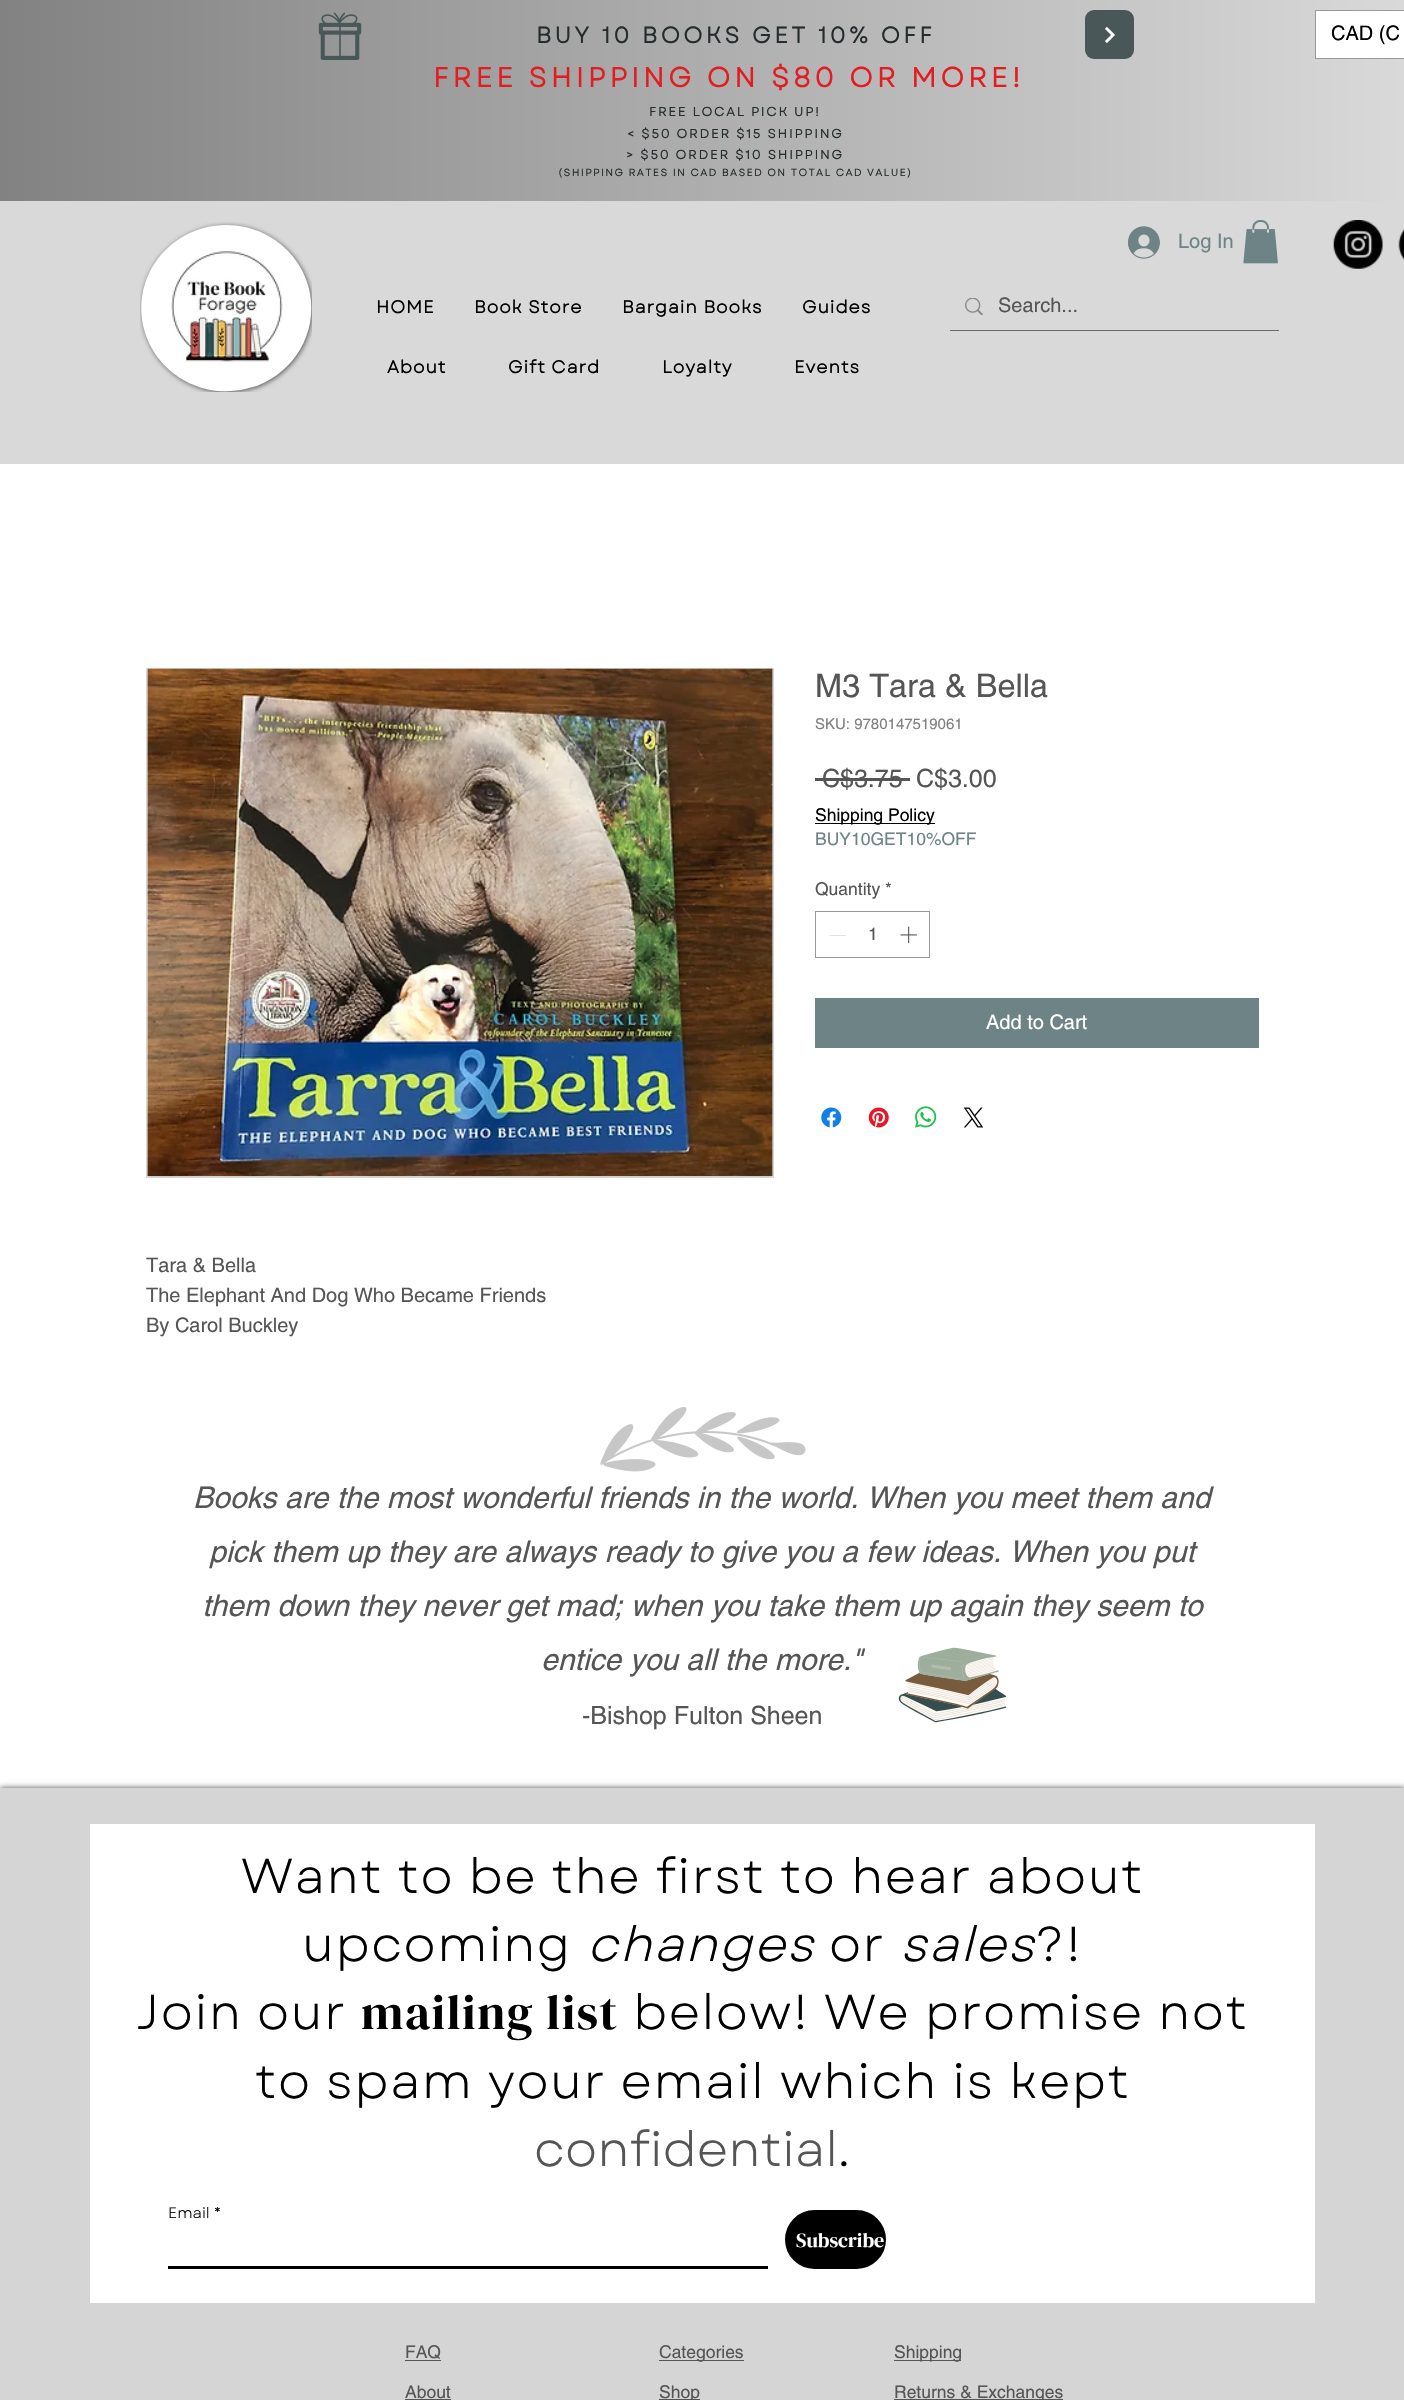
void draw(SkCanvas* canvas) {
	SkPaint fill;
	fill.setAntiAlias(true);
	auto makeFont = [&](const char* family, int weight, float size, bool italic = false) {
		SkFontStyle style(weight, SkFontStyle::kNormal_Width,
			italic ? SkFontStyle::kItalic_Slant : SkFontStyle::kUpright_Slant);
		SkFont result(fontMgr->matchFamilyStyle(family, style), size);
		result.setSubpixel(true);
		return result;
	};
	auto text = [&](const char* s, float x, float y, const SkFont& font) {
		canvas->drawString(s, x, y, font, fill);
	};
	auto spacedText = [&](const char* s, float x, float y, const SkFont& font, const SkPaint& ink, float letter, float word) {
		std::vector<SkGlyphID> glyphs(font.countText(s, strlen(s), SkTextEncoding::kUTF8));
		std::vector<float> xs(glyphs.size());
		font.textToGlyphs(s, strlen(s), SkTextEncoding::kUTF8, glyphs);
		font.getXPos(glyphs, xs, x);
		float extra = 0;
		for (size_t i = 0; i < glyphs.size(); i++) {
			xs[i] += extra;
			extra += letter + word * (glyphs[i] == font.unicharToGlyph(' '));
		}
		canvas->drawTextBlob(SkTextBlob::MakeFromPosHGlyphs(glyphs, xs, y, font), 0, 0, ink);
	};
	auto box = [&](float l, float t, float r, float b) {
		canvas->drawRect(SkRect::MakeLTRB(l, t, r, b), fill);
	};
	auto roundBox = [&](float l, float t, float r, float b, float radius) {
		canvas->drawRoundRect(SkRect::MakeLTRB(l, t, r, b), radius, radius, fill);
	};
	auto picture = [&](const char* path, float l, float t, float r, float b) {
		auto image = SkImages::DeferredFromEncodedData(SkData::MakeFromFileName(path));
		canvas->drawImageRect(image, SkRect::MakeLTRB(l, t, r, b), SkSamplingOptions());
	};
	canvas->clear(0xFFFFFFFF);
	{
		const SkColor colors[] = {0xFF828282, 0xFFD9D9D9};
		const float stops[] = {0, 1};
		const SkPoint ends[] = {{0, 101}, {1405, 101}};
		fill.setShader(SkGradientShader::MakeLinear(ends, colors, stops, 2, SkTileMode::kClamp));
		fill.setAlpha(255);
	}
	box(0, 0, 1404, 201);
	picture("image0.png", 318, 12, 362, 60);
	fill.setShader(nullptr);
	fill.setColor(0xFF495759);
	roundBox(1085, 10, 1134, 59, 9);
	picture("image1.png", 1105, 27, 1115, 43);
	fill.setColor(0xFFFFFFFF);
	canvas->drawRect(SkRect::MakeLTRB(1315.5f, 10.5f, 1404.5f, 58.5f), fill);
	fill.setStyle(SkPaint::kStroke_Style);
	fill.setStrokeWidth(1);
	fill.setColor(0xFF999999);
	canvas->drawRect(SkRect::MakeLTRB(1315.5f, 10.5f, 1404.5f, 58.5f), fill);
	fill.setStyle(SkPaint::kFill_Style);
	fill.setColor(0xFFD9D9D9);
	box(0, 201, 1404, 464);
	picture("image2.png", 140, 222, 312, 392);
	picture("image3.png", 171, 251, 283, 362);
	picture("image4.png", 1128, 226, 1160, 259);
	picture("image5.png", 1243, 220, 1278, 264);
	picture("image6.png", 1333, 220, 1383, 269);
	picture("image7.png", 1398, 228, 1404, 260);
	fill.setColor(0xFF6B6B6B);
	box(950, 330, 1279, 331);
	picture("image8.png", 965, 298, 983, 315);
	fill.setColor(0xFF555555);
	box(815, 778, 910, 781);
	fill.setColor(0xFF000000);
	box(815, 823, 935, 824);
	fill.setStyle(SkPaint::kStroke_Style);
	fill.setColor(0xFF999999);
	canvas->drawRect(SkRect::MakeLTRB(815.5f, 911.5f, 929.5f, 957.5f), fill);
	fill.setStyle(SkPaint::kFill_Style);
	fill.setColor(0xFFE3E3E3);
	box(829, 935, 846, 936);
	picture("image9.png", 900, 926, 917, 944);
	fill.setColor(0xFF6D8385);
	box(815, 998, 1259, 1048);
	picture("image10.png", 821, 1107, 842, 1128);
	picture("image11.png", 868, 1107, 889, 1128);
	picture("image12.png", 915, 1106, 937, 1128);
	picture("image13.png", 963, 1107, 984, 1128);
	fill.setStyle(SkPaint::kStroke_Style);
	fill.setColor(0xFFD5D5D5);
	canvas->drawRect(SkRect::MakeLTRB(146.5f, 668.5f, 773.5f, 1177.5f), fill);
	picture("image14.png", 147, 668, 773, 1177);
	picture("image15.png", 600, 1407, 806, 1472);
	picture("image16.png", 898, 1647, 1007, 1723);
	fill.setStyle(SkPaint::kFill_Style);
	fill.setColor(0xB3000000);
	fill.setMaskFilter(SkMaskFilter::MakeBlur(kNormal_SkBlurStyle, 3));
	canvas->drawRect(SkRect::MakeLTRB(0, 1788, 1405, 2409), fill);
	fill.setMaskFilter(nullptr);
	fill.setColor(0xFFD5D5D5);
	box(0, 1788, 1404, 2400);
	fill.setColor(0xFFFFFFFF);
	box(90, 1824, 1315, 2303);
	fill.setColor(0xFF000000);
	box(168, 2266, 768, 2269);
	canvas->drawRoundRect(SkRect::MakeLTRB(786.5f, 2211.5f, 884.5f, 2267.5f), 28, 28, fill);
	fill.setStyle(SkPaint::kStroke_Style);
	fill.setStrokeWidth(3);
	canvas->drawRoundRect(SkRect::MakeLTRB(786.5f, 2211.5f, 884.5f, 2267.5f), 28, 28, fill);
	fill.setStyle(SkPaint::kFill_Style);
	fill.setColor(0xFF555555);
	box(405, 2360, 441, 2361);
	box(659, 2360, 744, 2361);
	box(894, 2360, 961, 2361);
	box(405, 2399, 451, 2400);
	box(659, 2399, 700, 2400);
	box(894, 2399, 1063, 2400);
	auto font1 = makeFont("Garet", 700, 22.5f);
	fill.setColor(0xFF242C2D);
	spacedText("BUY 10 BOOKS GET 10% OFF", 536, 43, font1, fill, 3.4f, 0);
	auto font2 = makeFont("Garet", 700, 27.5f);
	fill.setColor(0xFFE21C21);
	spacedText("FREE SHIPPING ON $80 OR MORE!", 433, 87, font2, fill, 4.1f, 0);
	auto font3 = makeFont("Garet", 700, 12.5f);
	fill.setColor(0xFF242C2D);
	spacedText("FREE LOCAL PICK UP!", 649, 116, font3, fill, 1.9f, 0);
	spacedText("< $50 ORDER $15 SHIPPING", 627, 138, font3, fill, 1.9f, 0);
	spacedText("> $50 ORDER $10 SHIPPING", 626, 159, font3, fill, 1.9f, 0);
	auto font4 = makeFont("Garet", 700, 10);
	spacedText("(SHIPPING RATES IN CAD BASED ON TOTAL CAD VALUE)", 558, 176, font4, fill, 1.5f, 0);
	auto font5 = makeFont("helvetica", 400, 20);
	fill.setColor(0xFF000000);
	text("CAD (C", 1331, 40, font5);
	fill.setColor(0xFF6D8385);
	text("Log In", 1178, 248, font5);
	auto font6 = makeFont("Garet", 700, 17.5f);
	fill.setColor(0xFF000000);
	spacedText("HOME", 376, 313, font6, fill, 0.9f, 0);
	spacedText("Book Store", 474, 313, font6, fill, 0.9f, 0);
	spacedText("Bargain Books", 622, 313, font6, fill, 0.9f, 0);
	spacedText("Guides", 802, 313, font6, fill, 0.9f, 0);
	spacedText("About", 387, 373, font6, fill, 0.9f, 0);
	spacedText("Gift Card", 508, 373, font6, fill, 0.9f, 0);
	spacedText("Loyalty", 662, 373, font6, fill, 0.9f, 0);
	spacedText("Events", 794, 373, font6, fill, 0.9f, 0);
	fill.setColor(0xFF555555);
	text("Search...", 998, 312, font5);
	auto font7 = makeFont("helvetica", 400, 32.5f);
	text("M3 Tara & Bella", 815, 697, font7);
	auto font8 = makeFont("helvetica", 400, 15);
	fill.setColor(0xFF808080);
	text("SKU: 9780147519061", 815, 729, font8);
	auto font9 = makeFont("helvetica", 400, 25);
	fill.setColor(0xFF555555);
	text("C$3.75", 822, 787, font9);
	text("C$3.00", 916, 787, font9);
	auto font10 = makeFont("helvetica", 400, 17.5f);
	fill.setColor(0xFF000000);
	text("Shipping Policy", 815, 821, font10);
	fill.setColor(0xFF6D8385);
	text("BUY10GET10%OFF", 815, 845, font10);
	fill.setColor(0xFF555555);
	text("Quantity *", 815, 895, font10);
	text("1", 868, 940, font10);
	fill.setColor(0xFFFFFFFF);
	text("Add to Cart", 986, 1029, font5);
	fill.setColor(0xFF555555);
	text("Tara & Bella", 146, 1272, font5);
	text("The Elephant And Dog Who Became Friends", 146, 1302, font5);
	text("By Carol Buckley", 146, 1332, font5);
	auto font11 = makeFont("helvetica", 400, 30, true);
	text("Books are the most wonderful friends in the world. When you meet them and", 193, 1508, font11);
	text("pick them up they are always ready to give you a few ideas. When you put", 209, 1562, font11);
	text("them down they never get mad; when you take them up again they seem to", 202, 1616, font11);
	text("entice you all the more.\"", 541, 1670, font11);
	text("-Bishop Fulton Sheen", 582, 1724, font9);
	auto font12 = makeFont("Garet", 400, 48.75f);
	fill.setColor(0xFF000000);
	spacedText("Want to be the first to hear about", 241, 1893, font12, fill, 1.45f, 0);
	spacedText("upcoming", 302, 1961, font12, fill, 1.45f, 0);
	auto font13 = makeFont("Garet", 400, 48.75f, true);
	spacedText("changes", 587, 1961, font13, fill, 1.45f, 0);
	spacedText("or", 829, 1961, font12, fill, 1.45f, 0);
	spacedText("sales", 900, 1961, font13, fill, 1.45f, 0);
	spacedText("?!", 1035, 1961, font12, fill, 1.45f, 0);
	spacedText("Join our", 136, 2029, font12, fill, 1.45f, 0);
	auto font14 = makeFont("DM Serif Display", 400, 48.75f);
	spacedText("mailing list", 361, 2029, font14, fill, 1.45f, 0);
	spacedText("below! We promise not", 633, 2029, font12, fill, 1.45f, 0);
	spacedText("to spam your email which is kept", 255, 2098, font12, fill, 1.45f, 0);
	fill.setColor(0xFF555555);
	text("confidential", 534, 2166, font12);
	fill.setColor(0xFF000000);
	spacedText(".", 838, 2166, font12, fill, 1.45f, 0);
	auto font15 = makeFont("Garet", 400, 15);
	text("Email *", 168, 2218, font15);
	auto font16 = makeFont("DM Serif Display", 400, 20);
	fill.setColor(0xFFFFFFFF);
	text("Subscribe", 796, 2247, font16);
	fill.setColor(0xFF555555);
	text("FAQ", 405, 2358, font10);
	text("Categories", 659, 2358, font10);
	text("Shipping", 894, 2358, font10);
	text("About", 405, 2398, font10);
	text("Shop", 659, 2398, font10);
	text("Returns & Exchanges", 894, 2398, font10);
}
